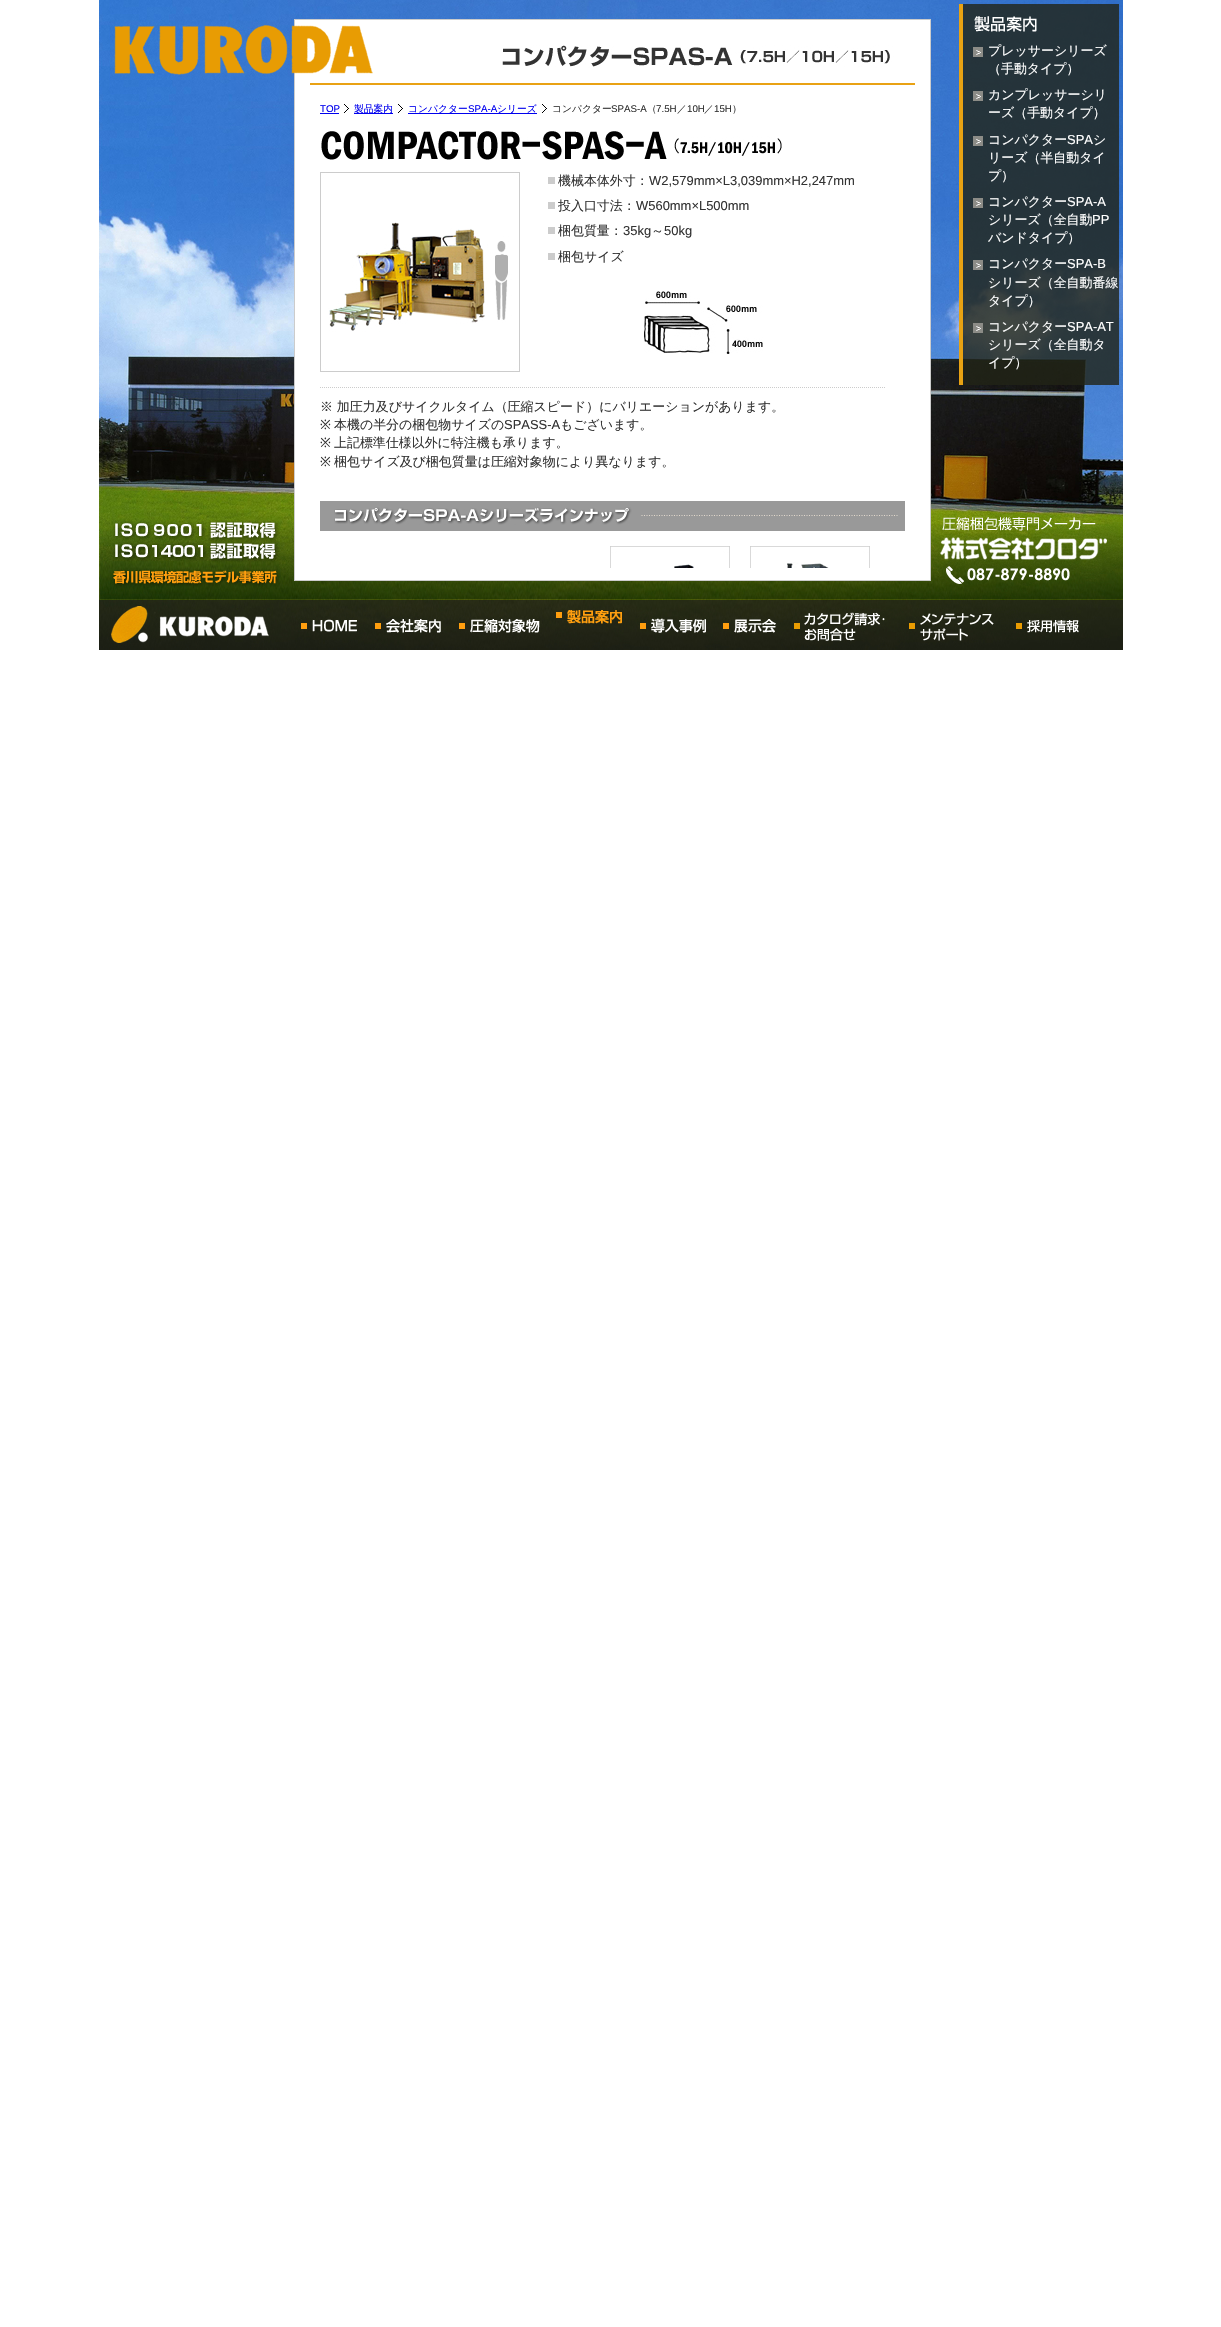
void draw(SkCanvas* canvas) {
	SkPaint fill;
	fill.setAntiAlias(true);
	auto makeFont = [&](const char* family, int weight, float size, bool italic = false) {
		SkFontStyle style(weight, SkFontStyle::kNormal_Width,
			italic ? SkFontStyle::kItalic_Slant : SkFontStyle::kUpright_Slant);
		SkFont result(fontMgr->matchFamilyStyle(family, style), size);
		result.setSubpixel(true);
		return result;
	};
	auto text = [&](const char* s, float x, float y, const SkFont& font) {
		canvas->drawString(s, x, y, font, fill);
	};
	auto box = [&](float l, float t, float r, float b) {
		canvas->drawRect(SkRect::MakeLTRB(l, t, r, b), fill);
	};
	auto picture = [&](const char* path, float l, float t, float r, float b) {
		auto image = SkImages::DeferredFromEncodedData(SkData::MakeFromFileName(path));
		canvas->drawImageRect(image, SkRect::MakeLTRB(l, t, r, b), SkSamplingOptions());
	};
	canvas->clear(0xFFFFFFFF);
	picture("image0.png", 99, 0, 1123, 600);
	fill.setColor(0xFFFFFFFF);
	canvas->drawRect(SkRect::MakeLTRB(294.5f, 19.5f, 930.5f, 580.5f), fill);
	fill.setStyle(SkPaint::kStroke_Style);
	fill.setStrokeWidth(1);
	fill.setColor(0xFFCCCCCC);
	canvas->drawRect(SkRect::MakeLTRB(294.5f, 19.5f, 930.5f, 580.5f), fill);
	picture("image2.png", 310, 45, 915, 85);
	picture("image1.png", 114, 25, 373, 75);
	fill.setStyle(SkPaint::kFill_Style);
	fill.setColor(0xFF0000EE);
	box(320, 113, 339, 114);
	picture("image3.png", 344, 104, 349, 113);
	box(354, 113, 393, 114);
	picture("image3.png", 398, 104, 403, 113);
	box(408, 113, 537, 114);
	picture("image3.png", 542, 104, 547, 113);
	picture("image4.png", 321, 131, 782, 160);
	fill.setStyle(SkPaint::kStroke_Style);
	fill.setColor(0xFFCCCCCC);
	fill.setPathEffect(SkDashPathEffect::Make({{1, 1}}, 0));
	canvas->drawPath(SkPathBuilder().moveTo(320, 387.5f).lineTo(885, 387.5f).detach(), fill);
	fill.setPathEffect(nullptr);
	picture("image5.png", 320, 172, 520, 372);
	fill.setStyle(SkPaint::kFill_Style);
	box(548, 177, 555, 184);
	box(548, 202, 555, 209);
	box(548, 227, 555, 234);
	box(548, 253, 555, 260);
	picture("image6.png", 644, 291, 763, 354);
	fill.setColor(0xFF999999);
	box(320, 501, 905, 531);
	picture("image7.png", 640, 515, 898, 516);
	picture("image8.png", 334, 507, 640, 525);
	picture("image9.png", 610, 546, 730, 568);
	picture("image10.png", 750, 546, 870, 568);
	fill.setColor(0xCC202315);
	box(963, 4, 1119, 385);
	fill.setColor(0xFFE8A213);
	box(959, 4, 963, 385);
	picture("image11.png", 974, 16, 1037, 32);
	picture("image12.png", 973, 47, 983, 57);
	picture("image12.png", 973, 91, 983, 101);
	picture("image12.png", 973, 136, 983, 146);
	picture("image12.png", 973, 198, 983, 208);
	picture("image12.png", 973, 260, 983, 270);
	picture("image12.png", 973, 323, 983, 333);
	picture("image13.png", 940, 517, 1107, 584);
	picture("image14.png", 99, 600, 294, 650);
	picture("image15.png", 294, 600, 364, 650);
	picture("image16.png", 364, 600, 447, 650);
	picture("image17.png", 447, 600, 544, 650);
	picture("image18.png", 544, 600, 629, 650);
	picture("image19.png", 629, 600, 713, 650);
	picture("image20.png", 713, 600, 783, 650);
	picture("image21.png", 783, 600, 897, 650);
	picture("image22.png", 897, 600, 1006, 650);
	picture("image23.png", 1006, 600, 1123, 650);
	auto font1 = makeFont("Liberation Sans", 400, 9.75f);
	fill.setColor(0xFF0000EE);
	text("TOP", 320, 112, font1);
	auto font2 = makeFont("WenQuanYi Zen Hei", 500, 9.75f);
	text("製品案内", 354, 112, font2);
	text("コンパクター", 408, 112, font2);
	text("SPA-A", 468, 112, font1);
	text("シリーズ", 497, 112, font2);
	fill.setColor(0xFF333333);
	text("コンパクター", 552, 112, font2);
	text("SPAS-A", 611, 112, font1);
	text("（", 647, 112, font2);
	text("7.5H", 656, 112, font1);
	text("／", 677, 112, font2);
	text("10H", 687, 112, font1);
	text("／", 704, 112, font2);
	text("15H", 714, 112, font1);
	text("）", 732, 112, font2);
	auto font3 = makeFont("WenQuanYi Zen Hei", 500, 12.95f);
	text("機械本体外寸：", 558, 185, font3);
	auto font4 = makeFont("Liberation Sans", 400, 12.95f);
	text("W2,579mm×L3,039mm×H2,247mm", 649, 185, font4);
	text("投入口寸法：", 558, 210, font3);
	text("W560mm×L500mm", 636, 210, font4);
	text("梱包質量：", 558, 235, font3);
	text("35kg", 623, 235, font4);
	text("～", 651, 235, font3);
	text("50kg", 664, 235, font4);
	text("梱包サイズ", 558, 261, font3);
	text("※ 加圧力及びサイクルタイム（圧縮スピード）にバリエーションがあります。", 320, 411, font3);
	auto font5 = makeFont("Noto Sans", 400, 12.95f);
	text("※", 320, 429, font5);
	text("本機の半分の梱包物サイズの", 334, 429, font3);
	text("SPASS-A", 504, 429, font4);
	text("もございます。", 560, 429, font3);
	text("※", 320, 447, font5);
	text("上記標準仕様以外に特注機も承ります。", 334, 447, font3);
	text("※", 320, 466, font5);
	text("梱包サイズ及び梱包質量は圧縮対象物により異なります。", 334, 466, font3);
	fill.setColor(0xFFFFFFFF);
	text("プレッサーシリーズ", 988, 55, font3);
	text("（手動タイプ）", 988, 73, font3);
	text("カンプレッサーシリ", 988, 99, font3);
	text("ーズ（手動タイプ）", 988, 117, font3);
	text("コンパクター", 988, 144, font3);
	text("SPA", 1067, 144, font4);
	text("シ", 1093, 144, font3);
	text("リーズ（半自動タイ", 988, 162, font3);
	text("プ）", 988, 180, font3);
	text("コンパクター", 988, 206, font3);
	text("SPA-A", 1067, 206, font4);
	text("シリーズ（全自動", 988, 224, font3);
	text("PP", 1092, 224, font4);
	text("バンドタイプ）", 988, 242, font3);
	text("コンパクター", 988, 268, font3);
	text("SPA-B", 1067, 268, font4);
	text("シリーズ（全自動番線", 988, 287, font3);
	text("タイプ）", 988, 305, font3);
	text("コンパクター", 988, 331, font3);
	text("SPA-AT", 1067, 331, font4);
	text("シリーズ（全自動タ", 988, 349, font3);
	text("イプ）", 988, 367, font3);
}
